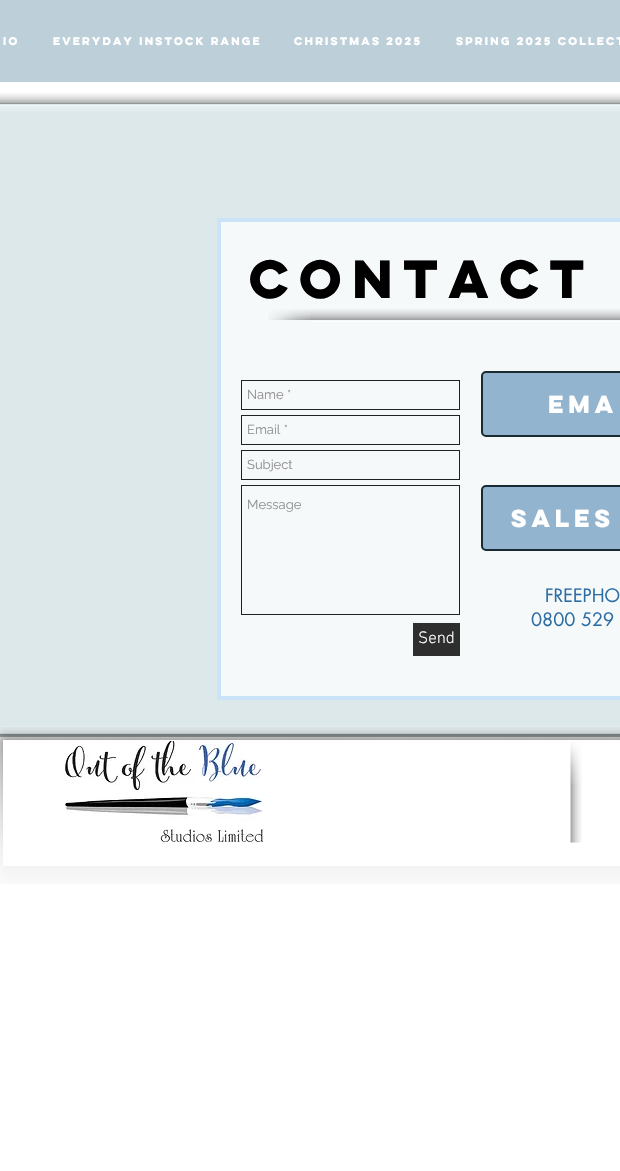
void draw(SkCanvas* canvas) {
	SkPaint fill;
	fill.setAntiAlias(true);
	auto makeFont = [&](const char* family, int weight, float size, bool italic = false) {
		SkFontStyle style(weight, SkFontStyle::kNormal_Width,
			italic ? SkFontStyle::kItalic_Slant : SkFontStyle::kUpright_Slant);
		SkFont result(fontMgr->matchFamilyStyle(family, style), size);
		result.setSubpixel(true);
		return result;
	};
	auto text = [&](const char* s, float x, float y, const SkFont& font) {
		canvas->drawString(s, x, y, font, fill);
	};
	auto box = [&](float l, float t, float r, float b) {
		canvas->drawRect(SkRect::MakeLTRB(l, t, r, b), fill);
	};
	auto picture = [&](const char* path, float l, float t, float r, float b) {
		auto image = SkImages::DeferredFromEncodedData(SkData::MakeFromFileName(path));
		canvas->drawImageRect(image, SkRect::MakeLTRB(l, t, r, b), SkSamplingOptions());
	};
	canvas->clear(0xFFFFFFFF);
	fill.setColor(0xFFBDCFD9);
	box(0, 0, 620, 82);
	fill.setColor(0xFFDDE8EB);
	box(0, 103, 620, 737);
	picture("image0.png", 0, 93, 620, 112);
	fill.setColor(0xFFF6F9FA);
	canvas->drawRect(SkRect::MakeLTRB(219, 220, 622, 698), fill);
	fill.setStyle(SkPaint::kStroke_Style);
	fill.setStrokeWidth(4);
	fill.setColor(0xFFCBE3F6);
	canvas->drawRect(SkRect::MakeLTRB(219, 220, 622, 698), fill);
	picture("image1.png", 310, 309, 620, 322);
	picture("image2.png", 268, 309, 310, 320);
	fill.setStrokeWidth(1);
	fill.setColor(0xFF212121);
	canvas->drawRect(SkRect::MakeLTRB(241.5f, 380.5f, 459.5f, 409.5f), fill);
	canvas->drawRect(SkRect::MakeLTRB(241.5f, 415.5f, 459.5f, 444.5f), fill);
	canvas->drawRect(SkRect::MakeLTRB(241.5f, 450.5f, 459.5f, 479.5f), fill);
	canvas->drawRect(SkRect::MakeLTRB(241.5f, 485.5f, 459.5f, 614.5f), fill);
	fill.setStyle(SkPaint::kFill_Style);
	fill.setColor(0xFF2F2E2E);
	box(413, 623, 460, 656);
	fill.setColor(0xFF93B4CF);
	canvas->drawRoundRect(SkRect::MakeLTRB(482, 372, 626, 436), 4, 4, fill);
	fill.setStyle(SkPaint::kStroke_Style);
	fill.setStrokeWidth(2);
	fill.setColor(0xFF192A33);
	canvas->drawRoundRect(SkRect::MakeLTRB(482, 372, 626, 436), 4, 4, fill);
	fill.setStyle(SkPaint::kFill_Style);
	fill.setColor(0xFF93B4CF);
	canvas->drawRoundRect(SkRect::MakeLTRB(482, 486, 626, 550), 4, 4, fill);
	fill.setStyle(SkPaint::kStroke_Style);
	fill.setColor(0xFF192A33);
	canvas->drawRoundRect(SkRect::MakeLTRB(482, 486, 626, 550), 4, 4, fill);
	picture("image3.png", 0, 726, 620, 737);
	picture("image4.png", 0, 727, 35, 884);
	picture("image5.png", 35, 727, 620, 884);
	fill.setStyle(SkPaint::kFill_Style);
	fill.setColor(0xFFFFFFFF);
	box(3, 740, 620, 866);
	picture("image6.png", 64, 741, 264, 842);
	picture("image7.png", 570, 783, 582, 843);
	picture("image8.png", 570, 742, 582, 784);
	auto font1 = makeFont("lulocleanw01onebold", 700, 10);
	text("io", 3, 45, font1);
	text("Everyday instock range", 53, 45, font1);
	text("Christmas 2025", 294, 45, font1);
	text("spring 2025 collect", 456, 45, font1);
	auto font2 = makeFont("lulocleanw01onebold", 700, 48);
	fill.setColor(0xFF000000);
	text("CONTACT", 249, 298, font2);
	auto font3 = makeFont("Raleway", 400, 13);
	fill.setColor(0xFF919191);
	text("Name *", 247, 399, font3);
	text("Email *", 247, 434, font3);
	text("Subject", 247, 469, font3);
	text("Message", 247, 509, font3);
	auto font4 = makeFont("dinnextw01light", 300, 17);
	fill.setColor(0xFFFFFFFF);
	text("Send", 418, 643, font4);
	auto font5 = makeFont("lulocleanw01onebold", 700, 22);
	text("Ema", 548, 413, font5);
	text("Sales", 511, 527, font5);
	auto font6 = makeFont("futura", 400, 18);
	fill.setColor(0xFF2B6CA3);
	text("FREEPHO", 545, 602, font6);
	text("0800 529", 531, 626, font6);
}
